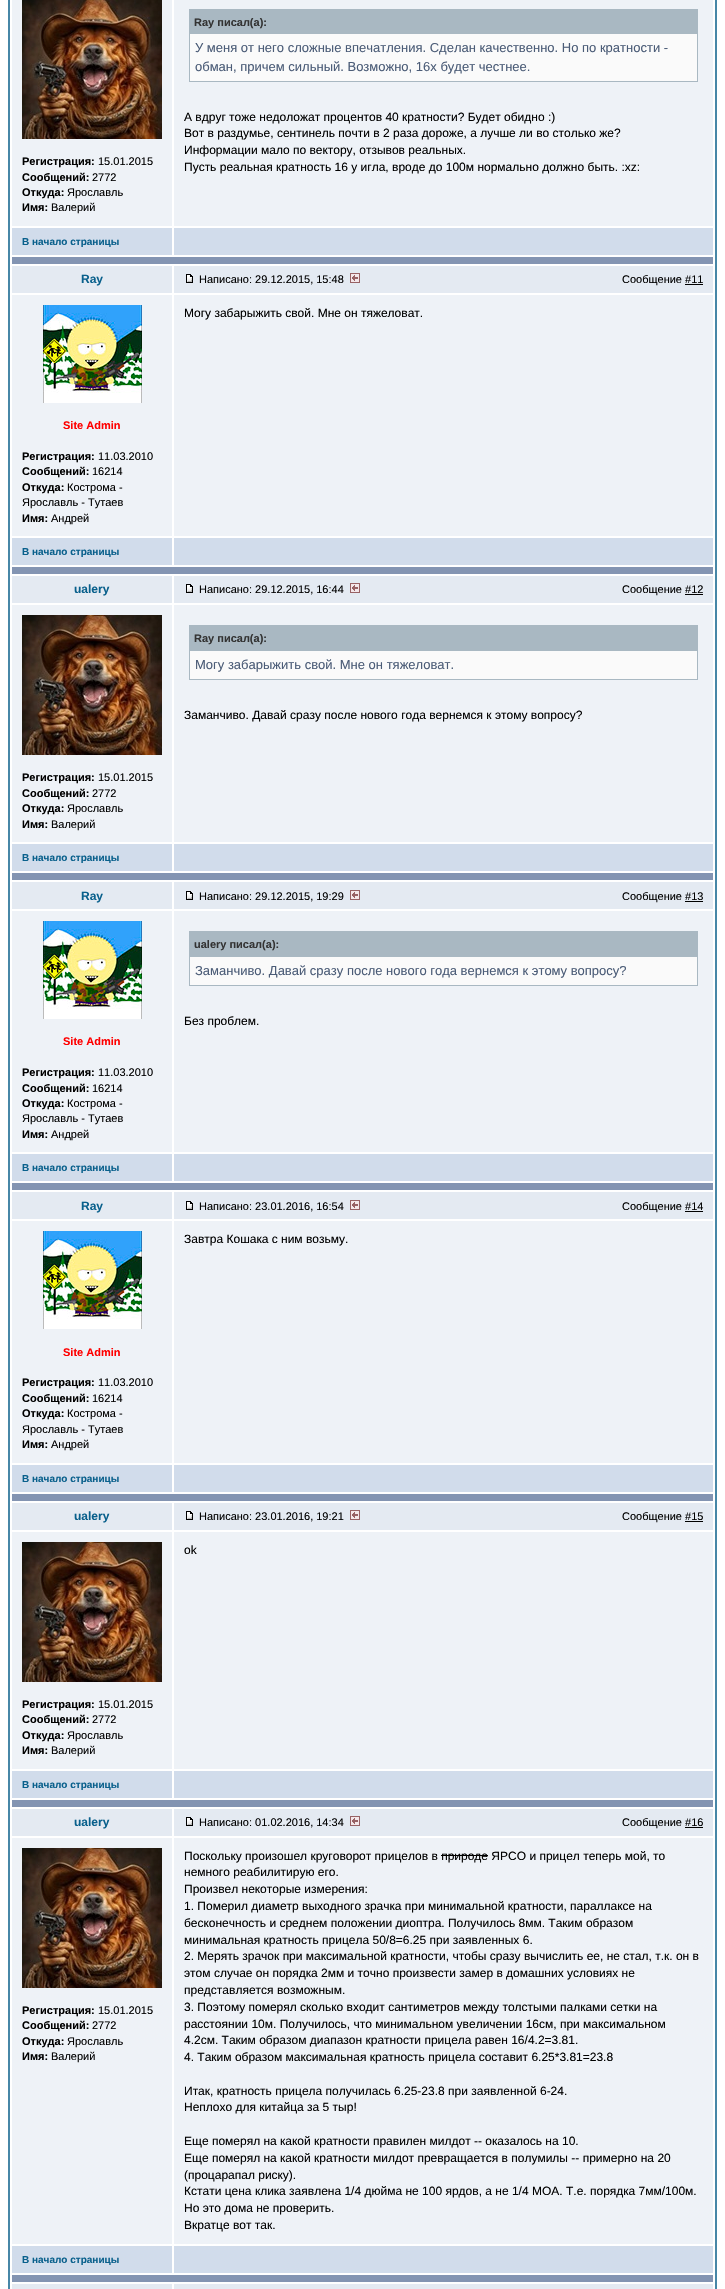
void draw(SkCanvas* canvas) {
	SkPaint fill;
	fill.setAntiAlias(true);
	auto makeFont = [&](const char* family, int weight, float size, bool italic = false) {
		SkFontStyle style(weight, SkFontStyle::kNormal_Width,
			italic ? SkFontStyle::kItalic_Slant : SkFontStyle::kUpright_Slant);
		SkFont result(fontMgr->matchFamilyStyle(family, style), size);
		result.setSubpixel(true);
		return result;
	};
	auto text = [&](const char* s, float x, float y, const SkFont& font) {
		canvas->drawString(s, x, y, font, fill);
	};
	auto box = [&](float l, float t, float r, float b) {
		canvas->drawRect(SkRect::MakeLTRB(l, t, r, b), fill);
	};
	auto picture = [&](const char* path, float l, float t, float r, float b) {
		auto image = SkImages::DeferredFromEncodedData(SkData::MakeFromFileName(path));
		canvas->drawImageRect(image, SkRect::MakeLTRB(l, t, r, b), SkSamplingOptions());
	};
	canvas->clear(0xFFFFFFFF);
	fill.setStyle(SkPaint::kStroke_Style);
	fill.setStrokeWidth(2);
	fill.setColor(0xFF4787A7);
	canvas->drawRect(SkRect::MakeLTRB(9, -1, 716, 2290), fill);
	fill.setStyle(SkPaint::kFill_Style);
	fill.setColor(0xFFEEF2F7);
	box(174, 0, 713, 226);
	fill.setColor(0xFFA9B8C2);
	box(190, 10, 697, 34);
	box(189, 9, 698, 10);
	box(697, 9, 698, 82);
	box(189, 9, 190, 34);
	fill.setColor(0xFFFAFAFA);
	box(190, 34, 697, 81);
	fill.setColor(0xFFA9B8C2);
	box(189, 81, 698, 82);
	box(189, 34, 190, 82);
	fill.setColor(0xFFEEF2F7);
	box(12, 0, 172, 226);
	picture("image0.png", 22, 0, 162, 139);
	fill.setColor(0xFFD1DCEB);
	box(12, 228, 172, 255);
	box(174, 228, 713, 255);
	fill.setColor(0xFF8394B2);
	box(12, 257, 713, 264);
	fill.setColor(0xFFE4EAF2);
	box(12, 266, 172, 293);
	box(174, 266, 713, 293);
	picture("image1.png", 186, 274, 193, 283);
	picture("image2.png", 350, 273, 360, 283);
	fill.setColor(0xFF000000);
	box(685, 284, 703, 285);
	fill.setColor(0xFFEEF2F7);
	box(174, 295, 713, 536);
	box(12, 295, 172, 536);
	picture("image3.png", 43, 305, 142, 403);
	fill.setColor(0xFFD1DCEB);
	box(12, 538, 172, 565);
	box(174, 538, 713, 565);
	fill.setColor(0xFF8394B2);
	box(12, 567, 713, 574);
	fill.setColor(0xFFE4EAF2);
	box(12, 576, 172, 603);
	box(174, 576, 713, 603);
	picture("image1.png", 186, 584, 193, 593);
	picture("image2.png", 350, 583, 360, 593);
	fill.setColor(0xFF000000);
	box(685, 594, 703, 595);
	fill.setColor(0xFFEEF2F7);
	box(174, 605, 713, 842);
	fill.setColor(0xFFA9B8C2);
	box(190, 626, 697, 651);
	box(189, 625, 698, 626);
	box(697, 625, 698, 680);
	box(189, 625, 190, 651);
	fill.setColor(0xFFFAFAFA);
	box(190, 651, 697, 679);
	fill.setColor(0xFFA9B8C2);
	box(189, 679, 698, 680);
	box(189, 651, 190, 680);
	fill.setColor(0xFFEEF2F7);
	box(12, 605, 172, 842);
	picture("image4.png", 22, 615, 162, 755);
	fill.setColor(0xFFD1DCEB);
	box(12, 844, 172, 871);
	box(174, 844, 713, 871);
	fill.setColor(0xFF8394B2);
	box(12, 873, 713, 880);
	fill.setColor(0xFFE4EAF2);
	box(12, 882, 172, 909);
	box(174, 882, 713, 909);
	picture("image1.png", 186, 891, 193, 900);
	picture("image2.png", 350, 890, 360, 900);
	fill.setColor(0xFF000000);
	box(685, 901, 703, 902);
	fill.setColor(0xFFEEF2F7);
	box(174, 911, 713, 1152);
	fill.setColor(0xFFA9B8C2);
	box(190, 932, 697, 957);
	box(189, 931, 698, 932);
	box(697, 931, 698, 986);
	box(189, 931, 190, 957);
	fill.setColor(0xFFFAFAFA);
	box(190, 957, 697, 985);
	fill.setColor(0xFFA9B8C2);
	box(189, 985, 698, 986);
	box(189, 957, 190, 986);
	fill.setColor(0xFFEEF2F7);
	box(12, 911, 172, 1152);
	picture("image3.png", 43, 921, 142, 1019);
	fill.setColor(0xFFD1DCEB);
	box(12, 1154, 172, 1181);
	box(174, 1154, 713, 1181);
	fill.setColor(0xFF8394B2);
	box(12, 1183, 713, 1190);
	fill.setColor(0xFFE4EAF2);
	box(12, 1192, 172, 1219);
	box(174, 1192, 713, 1219);
	picture("image1.png", 186, 1201, 193, 1210);
	picture("image2.png", 350, 1200, 360, 1210);
	fill.setColor(0xFF000000);
	box(685, 1211, 703, 1212);
	fill.setColor(0xFFEEF2F7);
	box(174, 1221, 713, 1463);
	box(12, 1221, 172, 1463);
	picture("image3.png", 43, 1231, 142, 1329);
	fill.setColor(0xFFD1DCEB);
	box(12, 1465, 172, 1492);
	box(174, 1465, 713, 1492);
	fill.setColor(0xFF8394B2);
	box(12, 1494, 713, 1501);
	fill.setColor(0xFFE4EAF2);
	box(12, 1503, 172, 1530);
	box(174, 1503, 713, 1530);
	picture("image1.png", 186, 1511, 193, 1520);
	picture("image2.png", 350, 1510, 360, 1520);
	fill.setColor(0xFF000000);
	box(685, 1521, 703, 1522);
	fill.setColor(0xFFEEF2F7);
	box(174, 1532, 713, 1769);
	box(12, 1532, 172, 1769);
	picture("image4.png", 22, 1542, 162, 1682);
	fill.setColor(0xFFD1DCEB);
	box(12, 1771, 172, 1798);
	box(174, 1771, 713, 1798);
	fill.setColor(0xFF8394B2);
	box(12, 1800, 713, 1807);
	fill.setColor(0xFFE4EAF2);
	box(12, 1809, 172, 1836);
	box(174, 1809, 713, 1836);
	picture("image1.png", 186, 1817, 193, 1826);
	picture("image2.png", 350, 1816, 360, 1826);
	fill.setColor(0xFF000000);
	box(685, 1827, 703, 1828);
	fill.setColor(0xFFEEF2F7);
	box(12, 1838, 172, 2244);
	picture("image4.png", 22, 1848, 162, 1988);
	box(174, 1838, 713, 2244);
	fill.setColor(0xFF000000);
	box(441, 1855, 488, 1856);
	fill.setColor(0xFFD1DCEB);
	box(12, 2246, 172, 2273);
	box(174, 2246, 713, 2273);
	fill.setColor(0xFF8394B2);
	box(12, 2275, 713, 2282);
	fill.setColor(0xFFE4EAF2);
	box(12, 2284, 172, 2289);
	box(174, 2284, 713, 2289);
	auto font1 = makeFont("Liberation Sans", 700, 11);
	fill.setColor(0xFF333333);
	text("Ray писал(a):", 194, 26, font1);
	auto font2 = makeFont("Liberation Sans", 400, 13);
	fill.setColor(0xFF4B5C77);
	text("У меня от него сложные впечатления. Сделан качественно. Но по кратности -", 195, 52, font2);
	text("обман, причем сильный. Возможно, 16х будет честнее.", 195, 71, font2);
	auto font3 = makeFont("Liberation Sans", 400, 12);
	fill.setColor(0xFF000000);
	text("А вдруг тоже недоложат процентов 40 кратности? Будет обидно :)", 184, 121, font3);
	text("Вот в раздумье, сентинель почти в 2 раза дороже, а лучше ли во столько же?", 184, 137, font3);
	text("Информации мало по вектору, отзывов реальных.", 184, 154, font3);
	text("Пусть реальная кратность 16 у игла, вроде до 100м нормально должно быть. :xz:", 184, 171, font3);
	text("Регистрация:", 22, 165, font1);
	auto font4 = makeFont("Liberation Sans", 400, 11);
	text("15.01.2015", 98, 165, font4);
	text("Сообщений:", 22, 181, font1);
	text("2772", 92, 181, font4);
	text("Откуда:", 22, 196, font1);
	text("Ярославль", 67, 196, font4);
	text("Имя:", 22, 211, font1);
	text("Валерий", 51, 211, font4);
	auto font5 = makeFont("Liberation Sans", 700, 10);
	fill.setColor(0xFF09608C);
	text("В начало страницы", 22, 245, font5);
	auto font6 = makeFont("Liberation Sans", 700, 12);
	text("Ray", 81, 283, font6);
	fill.setColor(0xFF000000);
	text("Написано: 29.12.2015, 15:48", 199, 283, font4);
	text("Сообщение #11", 622, 283, font4);
	text("Могу забарыжить свой. Мне он тяжеловат.", 184, 317, font3);
	fill.setColor(0xFFFF0000);
	text("Site Admin", 63, 429, font1);
	fill.setColor(0xFF000000);
	text("Регистрация:", 22, 460, font1);
	text("11.03.2010", 98, 460, font4);
	text("Сообщений:", 22, 475, font1);
	text("16214", 92, 475, font4);
	text("Откуда:", 22, 491, font1);
	text("Кострома -", 67, 491, font4);
	text("Ярославль - Тутаев", 22, 506, font4);
	text("Имя:", 22, 522, font1);
	text("Андрей", 51, 522, font4);
	fill.setColor(0xFF09608C);
	text("В начало страницы", 22, 555, font5);
	text("ualery", 74, 593, font6);
	fill.setColor(0xFF000000);
	text("Написано: 29.12.2015, 16:44", 199, 593, font4);
	text("Сообщение #12", 622, 593, font4);
	fill.setColor(0xFF333333);
	text("Ray писал(a):", 194, 642, font1);
	fill.setColor(0xFF4B5C77);
	text("Могу забарыжить свой. Мне он тяжеловат.", 195, 669, font2);
	fill.setColor(0xFF000000);
	text("Заманчиво. Давай сразу после нового года вернемся к этому вопросу?", 184, 719, font3);
	text("Регистрация:", 22, 781, font1);
	text("15.01.2015", 98, 781, font4);
	text("Сообщений:", 22, 797, font1);
	text("2772", 92, 797, font4);
	text("Откуда:", 22, 812, font1);
	text("Ярославль", 67, 812, font4);
	text("Имя:", 22, 828, font1);
	text("Валерий", 51, 828, font4);
	fill.setColor(0xFF09608C);
	text("В начало страницы", 22, 861, font5);
	text("Ray", 81, 900, font6);
	fill.setColor(0xFF000000);
	text("Написано: 29.12.2015, 19:29", 199, 900, font4);
	text("Сообщение #13", 622, 900, font4);
	fill.setColor(0xFF333333);
	text("ualery писал(a):", 194, 948, font1);
	fill.setColor(0xFF4B5C77);
	text("Заманчиво. Давай сразу после нового года вернемся к этому вопросу?", 195, 975, font2);
	fill.setColor(0xFF000000);
	text("Без проблем.", 184, 1025, font3);
	fill.setColor(0xFFFF0000);
	text("Site Admin", 63, 1045, font1);
	fill.setColor(0xFF000000);
	text("Регистрация:", 22, 1076, font1);
	text("11.03.2010", 98, 1076, font4);
	text("Сообщений:", 22, 1092, font1);
	text("16214", 92, 1092, font4);
	text("Откуда:", 22, 1107, font1);
	text("Кострома -", 67, 1107, font4);
	text("Ярославль - Тутаев", 22, 1122, font4);
	text("Имя:", 22, 1138, font1);
	text("Андрей", 51, 1138, font4);
	fill.setColor(0xFF09608C);
	text("В начало страницы", 22, 1171, font5);
	text("Ray", 81, 1210, font6);
	fill.setColor(0xFF000000);
	text("Написано: 23.01.2016, 16:54", 199, 1210, font4);
	text("Сообщение #14", 622, 1210, font4);
	text("Завтра Кошака с ним возьму.", 184, 1243, font3);
	fill.setColor(0xFFFF0000);
	text("Site Admin", 63, 1356, font1);
	fill.setColor(0xFF000000);
	text("Регистрация:", 22, 1386, font1);
	text("11.03.2010", 98, 1386, font4);
	text("Сообщений:", 22, 1402, font1);
	text("16214", 92, 1402, font4);
	text("Откуда:", 22, 1417, font1);
	text("Кострома -", 67, 1417, font4);
	text("Ярославль - Тутаев", 22, 1433, font4);
	text("Имя:", 22, 1448, font1);
	text("Андрей", 51, 1448, font4);
	fill.setColor(0xFF09608C);
	text("В начало страницы", 22, 1482, font5);
	text("ualery", 74, 1520, font6);
	fill.setColor(0xFF000000);
	text("Написано: 23.01.2016, 19:21", 199, 1520, font4);
	text("Сообщение #15", 622, 1520, font4);
	text("ok", 184, 1554, font3);
	text("Регистрация:", 22, 1708, font1);
	text("15.01.2015", 98, 1708, font4);
	text("Сообщений:", 22, 1723, font1);
	text("2772", 92, 1723, font4);
	text("Откуда:", 22, 1739, font1);
	text("Ярославль", 67, 1739, font4);
	text("Имя:", 22, 1754, font1);
	text("Валерий", 51, 1754, font4);
	fill.setColor(0xFF09608C);
	text("В начало страницы", 22, 1788, font5);
	text("ualery", 74, 1826, font6);
	fill.setColor(0xFF000000);
	text("Написано: 01.02.2016, 14:34", 199, 1826, font4);
	text("Сообщение #16", 622, 1826, font4);
	text("Регистрация:", 22, 2014, font1);
	text("15.01.2015", 98, 2014, font4);
	text("Сообщений:", 22, 2029, font1);
	text("2772", 92, 2029, font4);
	text("Откуда:", 22, 2045, font1);
	text("Ярославль", 67, 2045, font4);
	text("Имя:", 22, 2060, font1);
	text("Валерий", 51, 2060, font4);
	text("Поскольку произошел круговорот прицелов в природе ЯРСО и прицел теперь мой, то", 184, 1860, font3);
	text("немного реабилитирую его.", 184, 1876, font3);
	text("Произвел некоторые измерения:", 184, 1893, font3);
	text("1. Померил диаметр выходного зрачка при минимальной кратности, параллаксе на", 184, 1910, font3);
	text("бесконечность и среднем положении диоптра. Получилось 8мм. Таким образом", 184, 1927, font3);
	text("минимальная кратность прицела 50/8=6.25 при заявленных 6.", 184, 1944, font3);
	text("2. Мерять зрачок при максимальной кратности, чтобы сразу вычислить ее, не стал, т.к. он в", 184, 1960, font3);
	text("этом случае он порядка 2мм и точно произвести замер в домашних условиях не", 184, 1977, font3);
	text("представляется возможным.", 184, 1994, font3);
	text("3. Поэтому померял сколько входит сантиметров между толстыми палками сетки на", 184, 2011, font3);
	text("расстоянии 10м. Получилось, что минимальном увеличении 16см, при максимальном", 184, 2028, font3);
	text("4.2см. Таким образом диапазон кратности прицела равен 16/4.2=3.81.", 184, 2044, font3);
	text("4. Таким образом максимальная кратность прицела составит 6.25*3.81=23.8", 184, 2061, font3);
	text("Итак, кратность прицела получилась 6.25-23.8 при заявленной 6-24.", 184, 2095, font3);
	text("Неплохо для китайца за 5 тыр!", 184, 2111, font3);
	text("Еще померял на какой кратности правилен милдот -- оказалось на 10.", 184, 2145, font3);
	text("Еще померял на какой кратности милдот превращается в полумилы -- примерно на 20", 184, 2162, font3);
	text("(процарапал риску).", 184, 2179, font3);
	text("Кстати цена клика заявлена 1/4 дюйма не 100 ярдов, а не 1/4 МОА. Т.е. порядка 7мм/100м.", 184, 2195, font3);
	text("Но это дома не проверить.", 184, 2212, font3);
	text("Вкратце вот так.", 184, 2229, font3);
	fill.setColor(0xFF09608C);
	text("В начало страницы", 22, 2263, font5);
}
